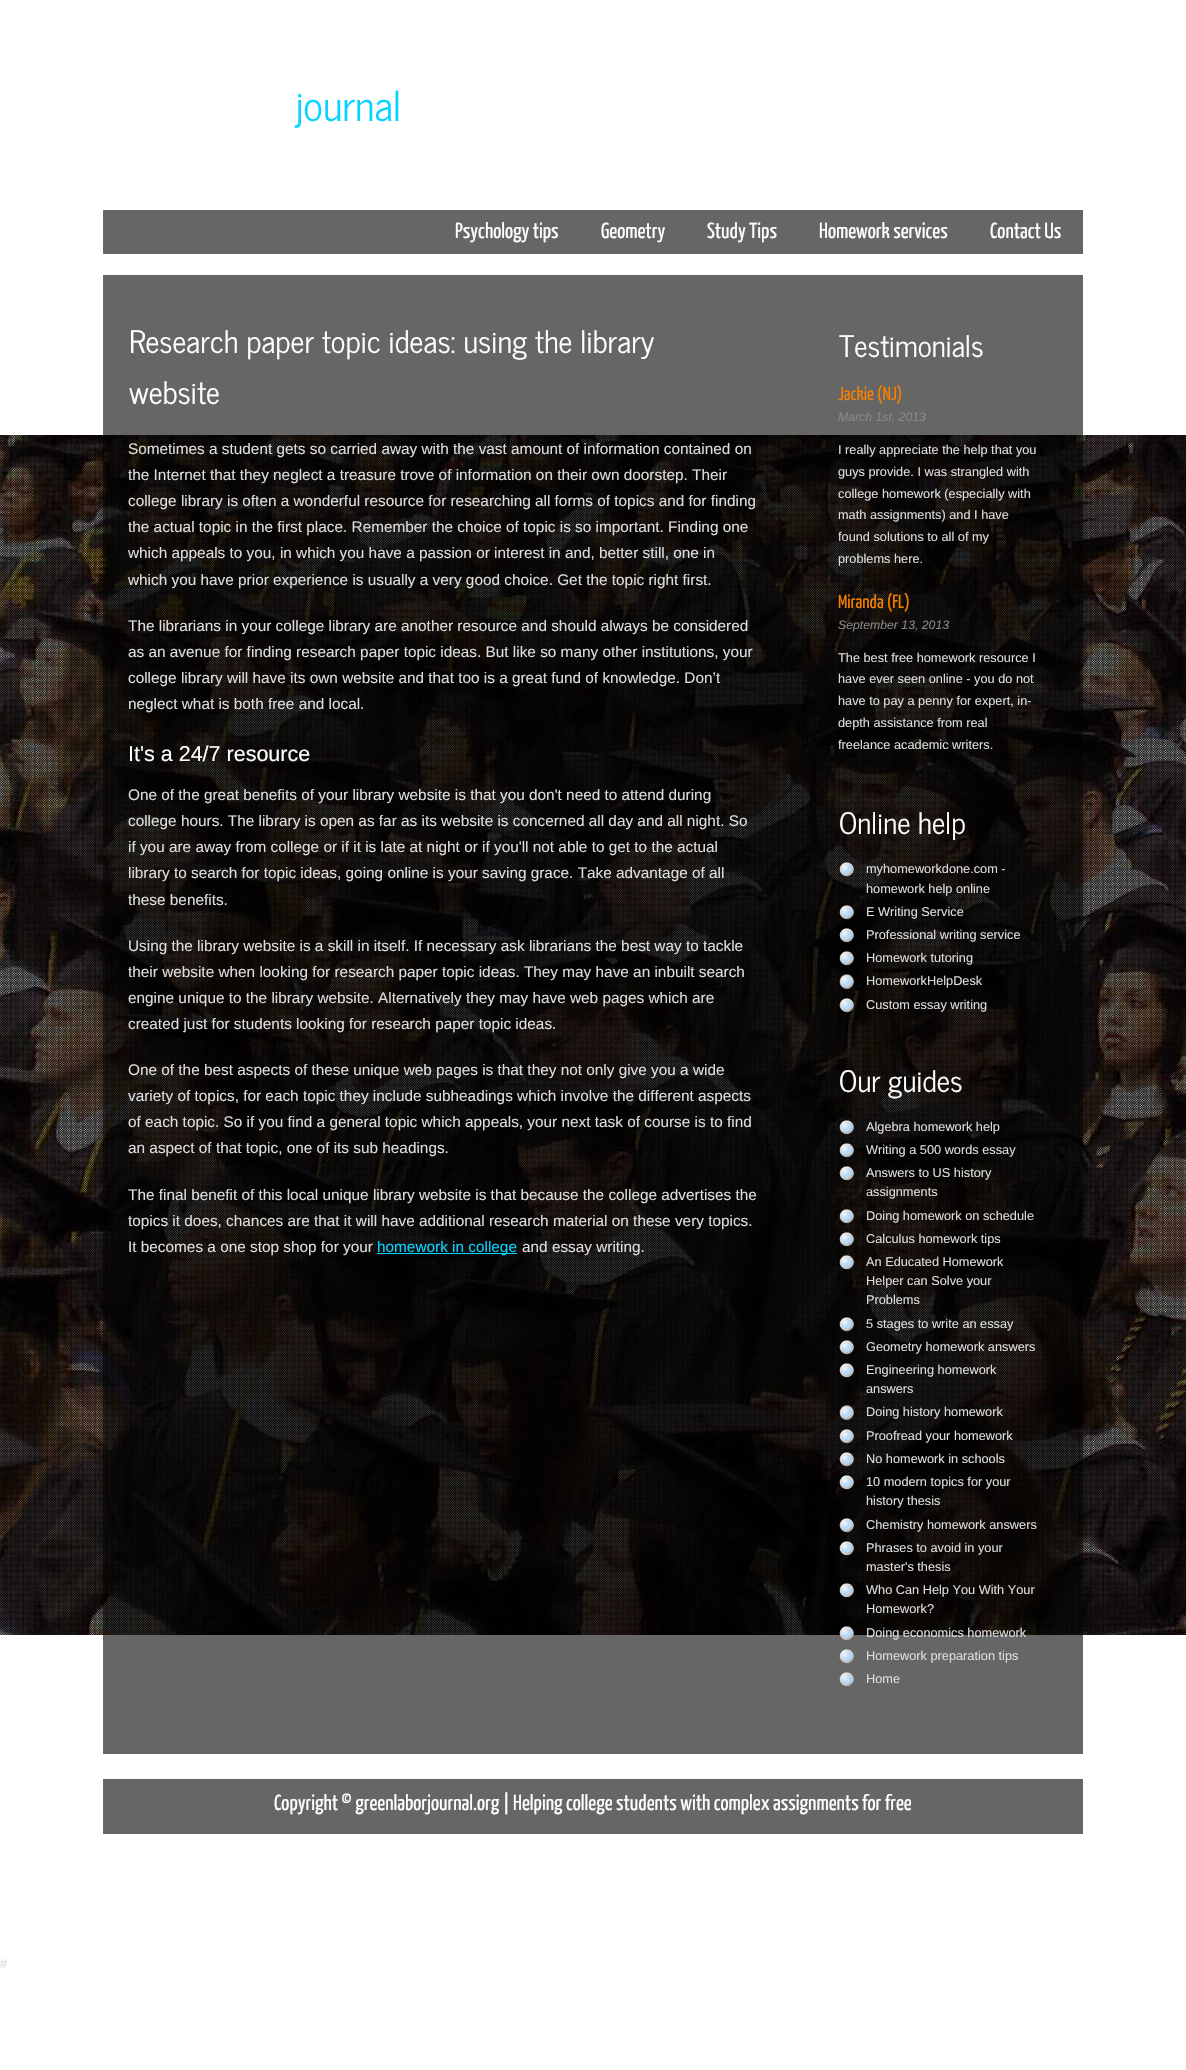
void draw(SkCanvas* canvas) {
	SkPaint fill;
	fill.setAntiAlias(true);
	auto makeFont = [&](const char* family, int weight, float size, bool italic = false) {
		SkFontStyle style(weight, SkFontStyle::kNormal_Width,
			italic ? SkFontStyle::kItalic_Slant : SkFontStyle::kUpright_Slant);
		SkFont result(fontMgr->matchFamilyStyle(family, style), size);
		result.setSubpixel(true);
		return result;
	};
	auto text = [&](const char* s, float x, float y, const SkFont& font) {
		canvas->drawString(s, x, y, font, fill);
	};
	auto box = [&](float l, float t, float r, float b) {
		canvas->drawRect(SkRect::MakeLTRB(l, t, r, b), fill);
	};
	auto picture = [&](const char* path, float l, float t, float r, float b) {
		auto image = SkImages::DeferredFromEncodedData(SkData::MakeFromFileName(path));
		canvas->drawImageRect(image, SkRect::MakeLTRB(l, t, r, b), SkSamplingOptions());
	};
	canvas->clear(0xFFFFFFFF);
	picture("image0.png", 0, 435, 1186, 1635);
	fill.setColor(0xFF666666);
	box(103, 210, 1083, 254);
	fill.setColor(0x99000000);
	box(103, 275, 1083, 1754);
	fill.setColor(0xFF09D4FF);
	box(377, 1253, 517, 1254);
	picture("image1.png", 839, 862, 854, 877);
	picture("image2.png", 839, 905, 854, 920);
	picture("image3.png", 839, 928, 854, 943);
	picture("image4.png", 839, 951, 854, 966);
	picture("image5.png", 839, 974, 854, 990);
	picture("image6.png", 839, 998, 854, 1013);
	picture("image7.png", 839, 1120, 854, 1135);
	picture("image8.png", 839, 1143, 854, 1158);
	picture("image9.png", 839, 1166, 854, 1181);
	picture("image10.png", 839, 1209, 854, 1224);
	picture("image11.png", 839, 1232, 854, 1247);
	picture("image12.png", 839, 1255, 854, 1270);
	picture("image13.png", 839, 1317, 854, 1332);
	picture("image14.png", 839, 1340, 854, 1355);
	picture("image15.png", 839, 1363, 854, 1378);
	picture("image16.png", 839, 1405, 854, 1421);
	picture("image17.png", 839, 1429, 854, 1444);
	picture("image18.png", 839, 1452, 854, 1467);
	picture("image19.png", 839, 1475, 854, 1490);
	picture("image20.png", 839, 1518, 854, 1533);
	picture("image21.png", 839, 1541, 854, 1556);
	picture("image22.png", 839, 1583, 854, 1598);
	picture("image23.png", 839, 1626, 854, 1641);
	picture("image24.png", 839, 1649, 854, 1664);
	picture("image24.png", 839, 1672, 854, 1687);
	fill.setColor(0xFF666666);
	box(103, 1779, 1083, 1834);
	auto font1 = makeFont("News Cycle", 400, 41);
	fill.setColor(0xFF09D4FF);
	text("journal", 296, 121, font1);
	auto font2 = makeFont("Yanone Kaffeesatz", 400, 21.75f);
	fill.setColor(0xFFFFFFFF);
	text("Psychology tips", 455, 238, font2);
	text("Geometry", 601, 238, font2);
	text("Study Tips", 707, 238, font2);
	text("Homework services", 819, 238, font2);
	text("Contact Us", 990, 238, font2);
	auto font3 = makeFont("News Cycle", 400, 30.75f);
	text("Research paper topic ideas: using the library", 129, 353, font3);
	text("website", 129, 404, font3);
	auto font4 = makeFont("Liberation Sans", 400, 15.35f);
	fill.setColor(0xFFDDDDDD);
	text("Sometimes a student gets so carried away with the vast amount of information contained on", 128, 454, font4);
	text("the Internet that they neglect a treasure trove of information on their own doorstep. Their", 128, 480, font4);
	text("college library is often a wonderful resource for researching all forms of topics and for finding", 128, 506, font4);
	text("the actual topic in the first place. Remember the choice of topic is so important. Finding one", 128, 532, font4);
	text("which appeals to you, in which you have a passion or interest in and, better still, one in", 128, 558, font4);
	text("which you have prior experience is usually a very good choice. Get the topic right first.", 128, 585, font4);
	text("The librarians in your college library are another resource and should always be considered", 128, 631, font4);
	text("as an avenue for finding research paper topic ideas. But like so many other institutions, your", 128, 657, font4);
	text("college library will have its own website and that too is a great fund of knowledge. Don’t", 128, 683, font4);
	text("neglect what is both free and local.", 128, 709, font4);
	auto font5 = makeFont("Liberation Sans", 400, 21.5f);
	fill.setColor(0xFFFFFFFF);
	text("It's a 24/7 resource", 128, 761, font5);
	fill.setColor(0xFFDDDDDD);
	text("One of the great benefits of your library website is that you don't need to attend during", 128, 800, font4);
	text("college hours. The library is open as far as its website is concerned all day and all night. So", 128, 826, font4);
	text("if you are away from college or if it is late at night or if you'll not able to get to the actual", 128, 852, font4);
	text("library to search for topic ideas, going online is your saving grace. Take advantage of all", 128, 878, font4);
	text("these benefits.", 128, 905, font4);
	text("Using the library website is a skill in itself. If necessary ask librarians the best way to tackle", 128, 951, font4);
	text("their website when looking for research paper topic ideas. They may have an inbuilt search", 128, 977, font4);
	text("engine unique to the library website. Alternatively they may have web pages which are", 128, 1003, font4);
	text("created just for students looking for research paper topic ideas.", 128, 1029, font4);
	text("One of the best aspects of these unique web pages is that they not only give you a wide", 128, 1075, font4);
	text("variety of topics, for each topic they include subheadings which involve the different aspects", 128, 1101, font4);
	text("of each topic. So if you find a general topic which appeals, your next task of course is to find", 128, 1127, font4);
	text("an aspect of that topic, one of its sub headings.", 128, 1153, font4);
	text("The final benefit of this local unique library website is that because the college advertises the", 128, 1200, font4);
	text("topics it does, chances are that it will have additional research material on these very topics.", 128, 1226, font4);
	text("It becomes a one stop shop for your", 128, 1252, font4);
	fill.setColor(0xFF09D4FF);
	text("homework in college", 377, 1252, font4);
	fill.setColor(0xFFDDDDDD);
	text("and essay writing.", 522, 1252, font4);
	auto font6 = makeFont("News Cycle", 400, 29.5f);
	fill.setColor(0xFFFFFFFF);
	text("Testimonials", 839, 357, font6);
	auto font7 = makeFont("Yanone Kaffeesatz", 400, 19);
	fill.setColor(0xFFF67F00);
	text("Jackie (NJ)", 838, 400, font7);
	auto font8 = makeFont("Liberation Sans", 400, 12.25f, true);
	fill.setColor(0xFF888888);
	text("March 1st, 2013", 838, 421, font8);
	auto font9 = makeFont("Liberation Sans", 400, 12.75f);
	fill.setColor(0xFFDDDDDD);
	text("I really appreciate the help that you", 838, 454, font9);
	text("guys provide. I was strangled with", 838, 476, font9);
	text("college homework (especially with", 838, 498, font9);
	text("math assignments) and I have", 838, 519, font9);
	text("found solutions to all of my", 838, 541, font9);
	text("problems here.", 838, 563, font9);
	fill.setColor(0xFFF67F00);
	text("Miranda (FL)", 838, 608, font7);
	fill.setColor(0xFF888888);
	text("September 13, 2013", 838, 629, font8);
	fill.setColor(0xFFDDDDDD);
	text("The best free homework resource I", 838, 662, font9);
	text("have ever seen online - you do not", 838, 683, font9);
	text("have to pay a penny for expert, in-", 838, 705, font9);
	text("depth assistance from real", 838, 727, font9);
	text("freelance academic writers.", 838, 749, font9);
	fill.setColor(0xFFFFFFFF);
	text("Online help", 839, 834, font6);
	fill.setColor(0xFFDDDDDD);
	text("myhomeworkdone.com -", 866, 873, font9);
	text("homework help online", 866, 893, font9);
	text("E Writing Service", 866, 916, font9);
	text("Professional writing service", 866, 939, font9);
	text("Homework tutoring", 866, 962, font9);
	text("HomeworkHelpDesk", 866, 985, font9);
	text("Custom essay writing", 866, 1009, font9);
	fill.setColor(0xFFFFFFFF);
	text("Our guides", 839, 1092, font6);
	fill.setColor(0xFFDDDDDD);
	text("Algebra homework help", 866, 1131, font9);
	text("Writing a 500 words essay", 866, 1154, font9);
	text("Answers to US history", 866, 1177, font9);
	text("assignments", 866, 1196, font9);
	text("Doing homework on schedule", 866, 1220, font9);
	text("Calculus homework tips", 866, 1243, font9);
	text("An Educated Homework", 866, 1266, font9);
	text("Helper can Solve your", 866, 1285, font9);
	text("Problems", 866, 1304, font9);
	text("5 stages to write an essay", 866, 1328, font9);
	text("Geometry homework answers", 866, 1351, font9);
	text("Engineering homework", 866, 1374, font9);
	text("answers", 866, 1393, font9);
	text("Doing history homework", 866, 1416, font9);
	text("Proofread your homework", 866, 1440, font9);
	text("No homework in schools", 866, 1463, font9);
	text("10 modern topics for your", 866, 1486, font9);
	text("history thesis", 866, 1505, font9);
	text("Chemistry homework answers", 866, 1529, font9);
	text("Phrases to avoid in your", 866, 1552, font9);
	text("master's thesis", 866, 1571, font9);
	text("Who Can Help You With Your", 866, 1594, font9);
	text("Homework?", 866, 1613, font9);
	text("Doing economics homework", 866, 1637, font9);
	text("Homework preparation tips", 866, 1660, font9);
	text("Home", 866, 1683, font9);
	fill.setColor(0xFFFFFFFF);
	text("Copyright © greenlaborjournal.org | Helping college students with complex assignments for free", 274, 1810, font2);
	fill.setColor(0xFFDDDDDD);
	text("#", 0, 1968, font9);
}
